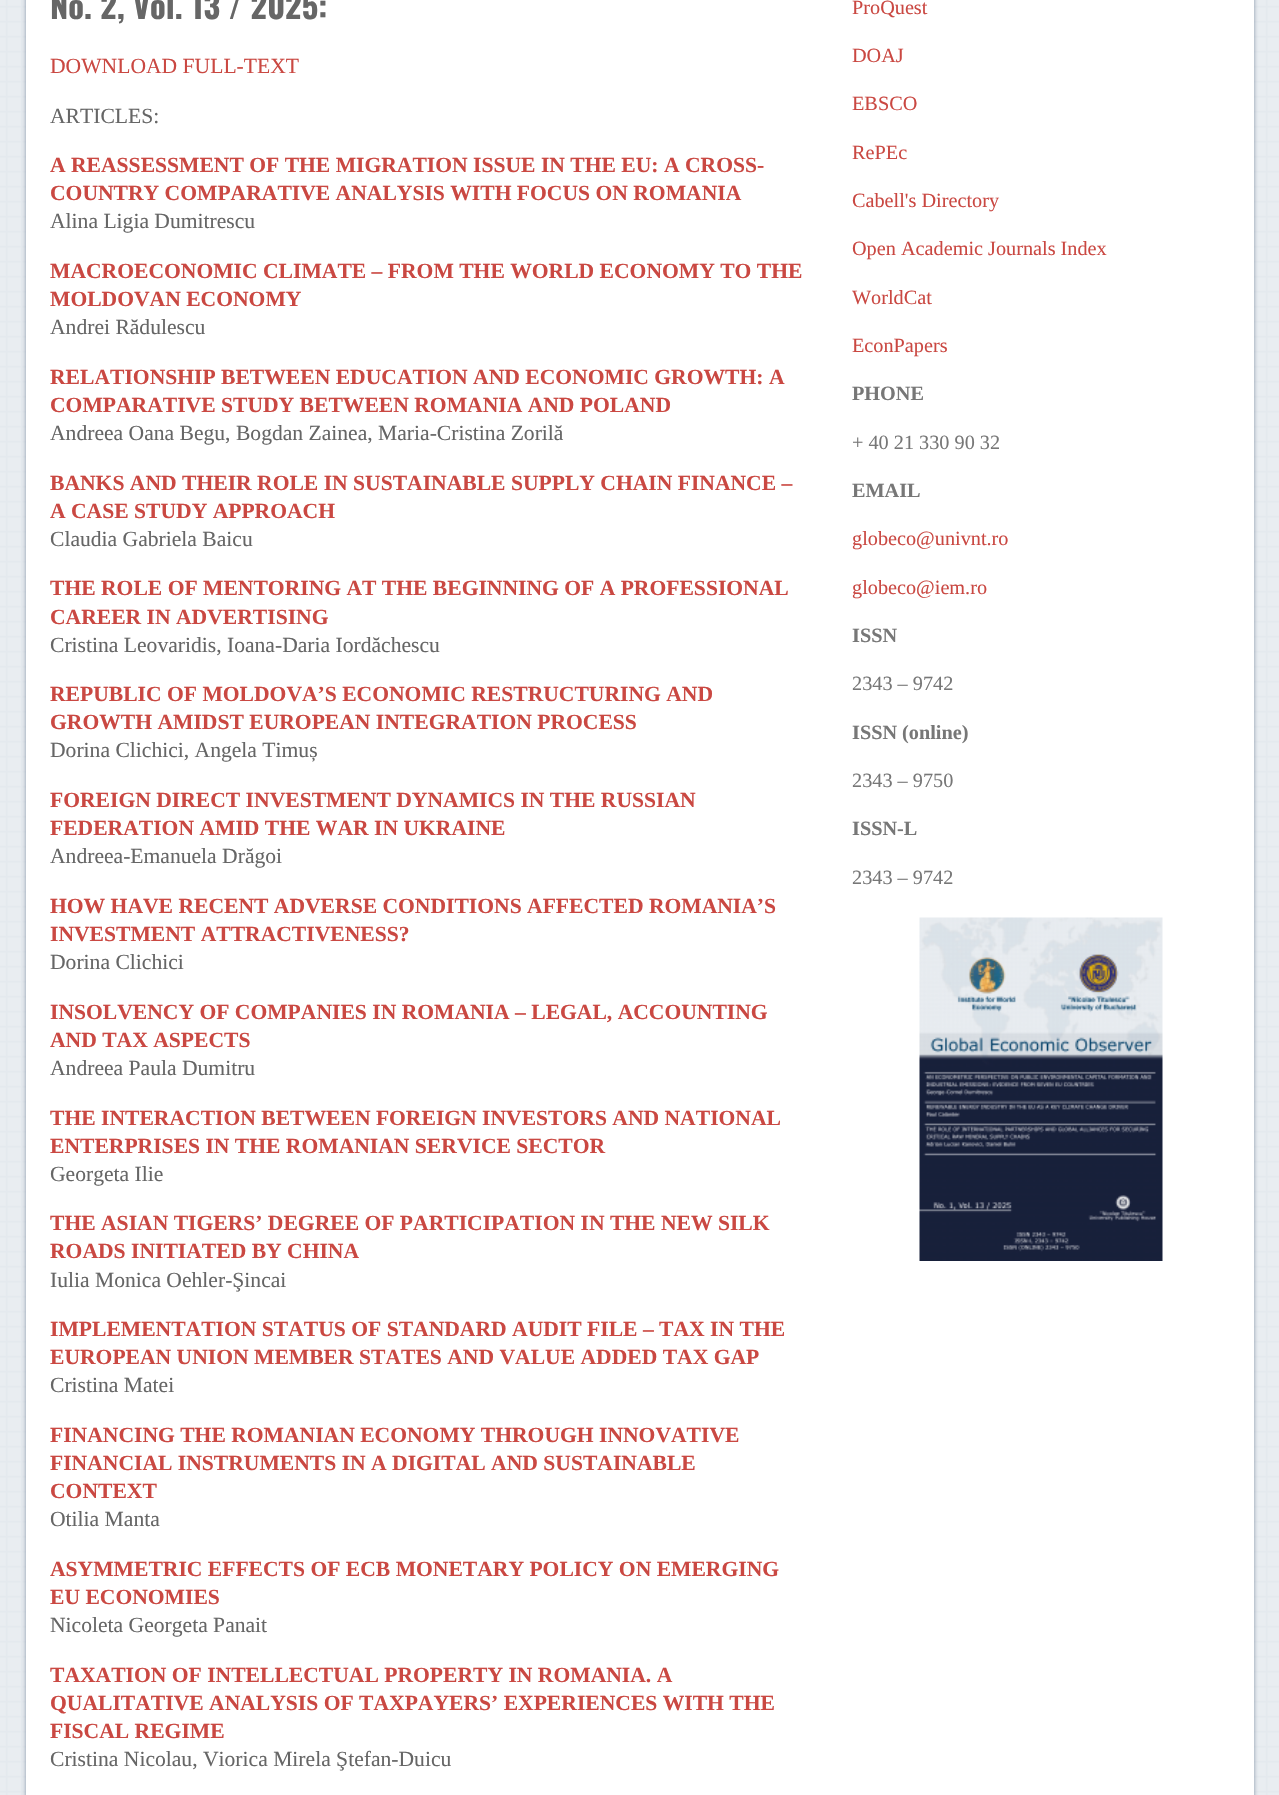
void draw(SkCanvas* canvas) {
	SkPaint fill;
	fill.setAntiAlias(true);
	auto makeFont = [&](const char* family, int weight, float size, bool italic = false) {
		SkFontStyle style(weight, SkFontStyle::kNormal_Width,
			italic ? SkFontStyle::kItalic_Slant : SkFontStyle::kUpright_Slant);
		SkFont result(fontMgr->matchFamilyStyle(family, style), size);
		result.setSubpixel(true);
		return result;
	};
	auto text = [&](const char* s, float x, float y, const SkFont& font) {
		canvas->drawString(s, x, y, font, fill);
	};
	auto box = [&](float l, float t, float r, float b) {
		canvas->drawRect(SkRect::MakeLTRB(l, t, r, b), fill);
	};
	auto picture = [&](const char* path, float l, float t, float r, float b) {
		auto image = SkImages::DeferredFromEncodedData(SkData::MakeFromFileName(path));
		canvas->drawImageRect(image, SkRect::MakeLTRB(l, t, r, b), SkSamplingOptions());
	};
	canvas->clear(0xFFFFFFFF);
	picture("image0.png", 0, 0, 1279, 1795);
	fill.setColor(0xFF8493A6);
	fill.setMaskFilter(SkMaskFilter::MakeBlur(kNormal_SkBlurStyle, 2));
	canvas->drawRoundRect(SkRect::MakeLTRB(26, -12, 1254, 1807), 6, 6, fill);
	fill.setMaskFilter(nullptr);
	fill.setColor(0xFFFFFFFF);
	box(26, 0, 1254, 1795);
	picture("image1.png", 919, 917, 1163, 1261);
	auto font1 = makeFont("Oswald", 700, 32.5f);
	fill.setColor(0xFF666666);
	text("No. 2, Vol. 13 / 2025:", 50, 19, font1);
	auto font2 = makeFont("Liberation Serif", 400, 21.6f);
	fill.setColor(0xFFCA4842);
	text("DOWNLOAD FULL-TEXT", 50, 73, font2);
	fill.setColor(0xFF666666);
	text("ARTICLES:", 50, 123, font2);
	auto font3 = makeFont("Liberation Serif", 700, 21.6f);
	fill.setColor(0xFFCA4842);
	text("A REASSESSMENT OF THE MIGRATION ISSUE IN THE EU: A CROSS-", 50, 172, font3);
	text("COUNTRY COMPARATIVE ANALYSIS WITH FOCUS ON ROMANIA", 50, 200, font3);
	fill.setColor(0xFF666666);
	text("Alina Ligia Dumitrescu", 50, 228, font2);
	fill.setColor(0xFFCA4842);
	text("MACROECONOMIC CLIMATE – FROM THE WORLD ECONOMY TO THE", 50, 278, font3);
	text("MOLDOVAN ECONOMY", 50, 306, font3);
	fill.setColor(0xFF666666);
	text("Andrei Rădulescu", 50, 334, font2);
	fill.setColor(0xFFCA4842);
	text("RELATIONSHIP BETWEEN EDUCATION AND ECONOMIC GROWTH: A", 50, 384, font3);
	text("COMPARATIVE STUDY BETWEEN ROMANIA AND POLAND", 50, 412, font3);
	fill.setColor(0xFF666666);
	text("Andreea Oana Begu, Bogdan Zainea, Maria-Cristina Zorilă", 50, 440, font2);
	fill.setColor(0xFFCA4842);
	text("BANKS AND THEIR ROLE IN SUSTAINABLE SUPPLY CHAIN FINANCE –", 50, 490, font3);
	text("A CASE STUDY APPROACH", 50, 518, font3);
	fill.setColor(0xFF666666);
	text("Claudia Gabriela Baicu", 50, 546, font2);
	fill.setColor(0xFFCA4842);
	text("THE ROLE OF MENTORING AT THE BEGINNING OF A PROFESSIONAL", 50, 595, font3);
	text("CAREER IN ADVERTISING", 50, 624, font3);
	fill.setColor(0xFF666666);
	text("Cristina Leovaridis, Ioana-Daria Iordăchescu", 50, 652, font2);
	fill.setColor(0xFFCA4842);
	text("REPUBLIC OF MOLDOVA’S ECONOMIC RESTRUCTURING AND", 50, 701, font3);
	text("GROWTH AMIDST EUROPEAN INTEGRATION PROCESS", 50, 729, font3);
	fill.setColor(0xFF666666);
	text("Dorina Clichici, Angela Timuș", 50, 757, font2);
	fill.setColor(0xFFCA4842);
	text("FOREIGN DIRECT INVESTMENT DYNAMICS IN THE RUSSIAN", 50, 807, font3);
	text("FEDERATION AMID THE WAR IN UKRAINE", 50, 835, font3);
	fill.setColor(0xFF666666);
	text("Andreea-Emanuela Drăgoi", 50, 863, font2);
	fill.setColor(0xFFCA4842);
	text("HOW HAVE RECENT ADVERSE CONDITIONS AFFECTED ROMANIA’S", 50, 913, font3);
	text("INVESTMENT ATTRACTIVENESS?", 50, 941, font3);
	fill.setColor(0xFF666666);
	text("Dorina Clichici", 50, 969, font2);
	fill.setColor(0xFFCA4842);
	text("INSOLVENCY OF COMPANIES IN ROMANIA – LEGAL, ACCOUNTING", 50, 1019, font3);
	text("AND TAX ASPECTS", 50, 1047, font3);
	fill.setColor(0xFF666666);
	text("Andreea Paula Dumitru", 50, 1075, font2);
	fill.setColor(0xFFCA4842);
	text("THE INTERACTION BETWEEN FOREIGN INVESTORS AND NATIONAL", 50, 1125, font3);
	text("ENTERPRISES IN THE ROMANIAN SERVICE SECTOR", 50, 1153, font3);
	fill.setColor(0xFF666666);
	text("Georgeta Ilie", 50, 1181, font2);
	fill.setColor(0xFFCA4842);
	text("THE ASIAN TIGERS’ DEGREE OF PARTICIPATION IN THE NEW SILK", 50, 1230, font3);
	text("ROADS INITIATED BY CHINA", 50, 1258, font3);
	fill.setColor(0xFF666666);
	text("Iulia Monica Oehler-Şincai", 50, 1287, font2);
	fill.setColor(0xFFCA4842);
	text("IMPLEMENTATION STATUS OF STANDARD AUDIT FILE – TAX IN THE", 50, 1336, font3);
	text("EUROPEAN UNION MEMBER STATES AND VALUE ADDED TAX GAP", 50, 1364, font3);
	fill.setColor(0xFF666666);
	text("Cristina Matei", 50, 1392, font2);
	fill.setColor(0xFFCA4842);
	text("FINANCING THE ROMANIAN ECONOMY THROUGH INNOVATIVE", 50, 1442, font3);
	text("FINANCIAL INSTRUMENTS IN A DIGITAL AND SUSTAINABLE", 50, 1470, font3);
	text("CONTEXT", 50, 1498, font3);
	fill.setColor(0xFF666666);
	text("Otilia Manta", 50, 1526, font2);
	fill.setColor(0xFFCA4842);
	text("ASYMMETRIC EFFECTS OF ECB MONETARY POLICY ON EMERGING", 50, 1576, font3);
	text("EU ECONOMIES", 50, 1604, font3);
	fill.setColor(0xFF666666);
	text("Nicoleta Georgeta Panait", 50, 1632, font2);
	fill.setColor(0xFFCA4842);
	text("TAXATION OF INTELLECTUAL PROPERTY IN ROMANIA. A", 50, 1682, font3);
	text("QUALITATIVE ANALYSIS OF TAXPAYERS’ EXPERIENCES WITH THE", 50, 1710, font3);
	text("FISCAL REGIME", 50, 1738, font3);
	fill.setColor(0xFF666666);
	text("Cristina Nicolau, Viorica Mirela Ştefan-Duicu", 50, 1766, font2);
	auto font4 = makeFont("Liberation Serif", 400, 20.25f);
	fill.setColor(0xFFCA4842);
	text("ProQuest", 852, 14, font4);
	text("DOAJ", 852, 62, font4);
	text("EBSCO", 852, 110, font4);
	text("RePEc", 852, 159, font4);
	text("Cabell's Directory", 852, 207, font4);
	text("Open Academic Journals Index", 852, 255, font4);
	text("WorldCat", 852, 304, font4);
	text("EconPapers", 852, 352, font4);
	auto font5 = makeFont("Liberation Serif", 700, 20.25f);
	fill.setColor(0xFF777777);
	text("PHONE", 852, 400, font5);
	text("+ 40 21 330 90 32", 852, 449, font4);
	text("EMAIL", 852, 497, font5);
	fill.setColor(0xFFCA4842);
	text("globeco@univnt.ro", 852, 545, font4);
	text("globeco@iem.ro", 852, 594, font4);
	fill.setColor(0xFF777777);
	text("ISSN", 852, 642, font5);
	text("2343 – 9742", 852, 690, font4);
	text("ISSN (online)", 852, 739, font5);
	text("2343 – 9750", 852, 787, font4);
	text("ISSN-L", 852, 835, font5);
	text("2343 – 9742", 852, 884, font4);
}
